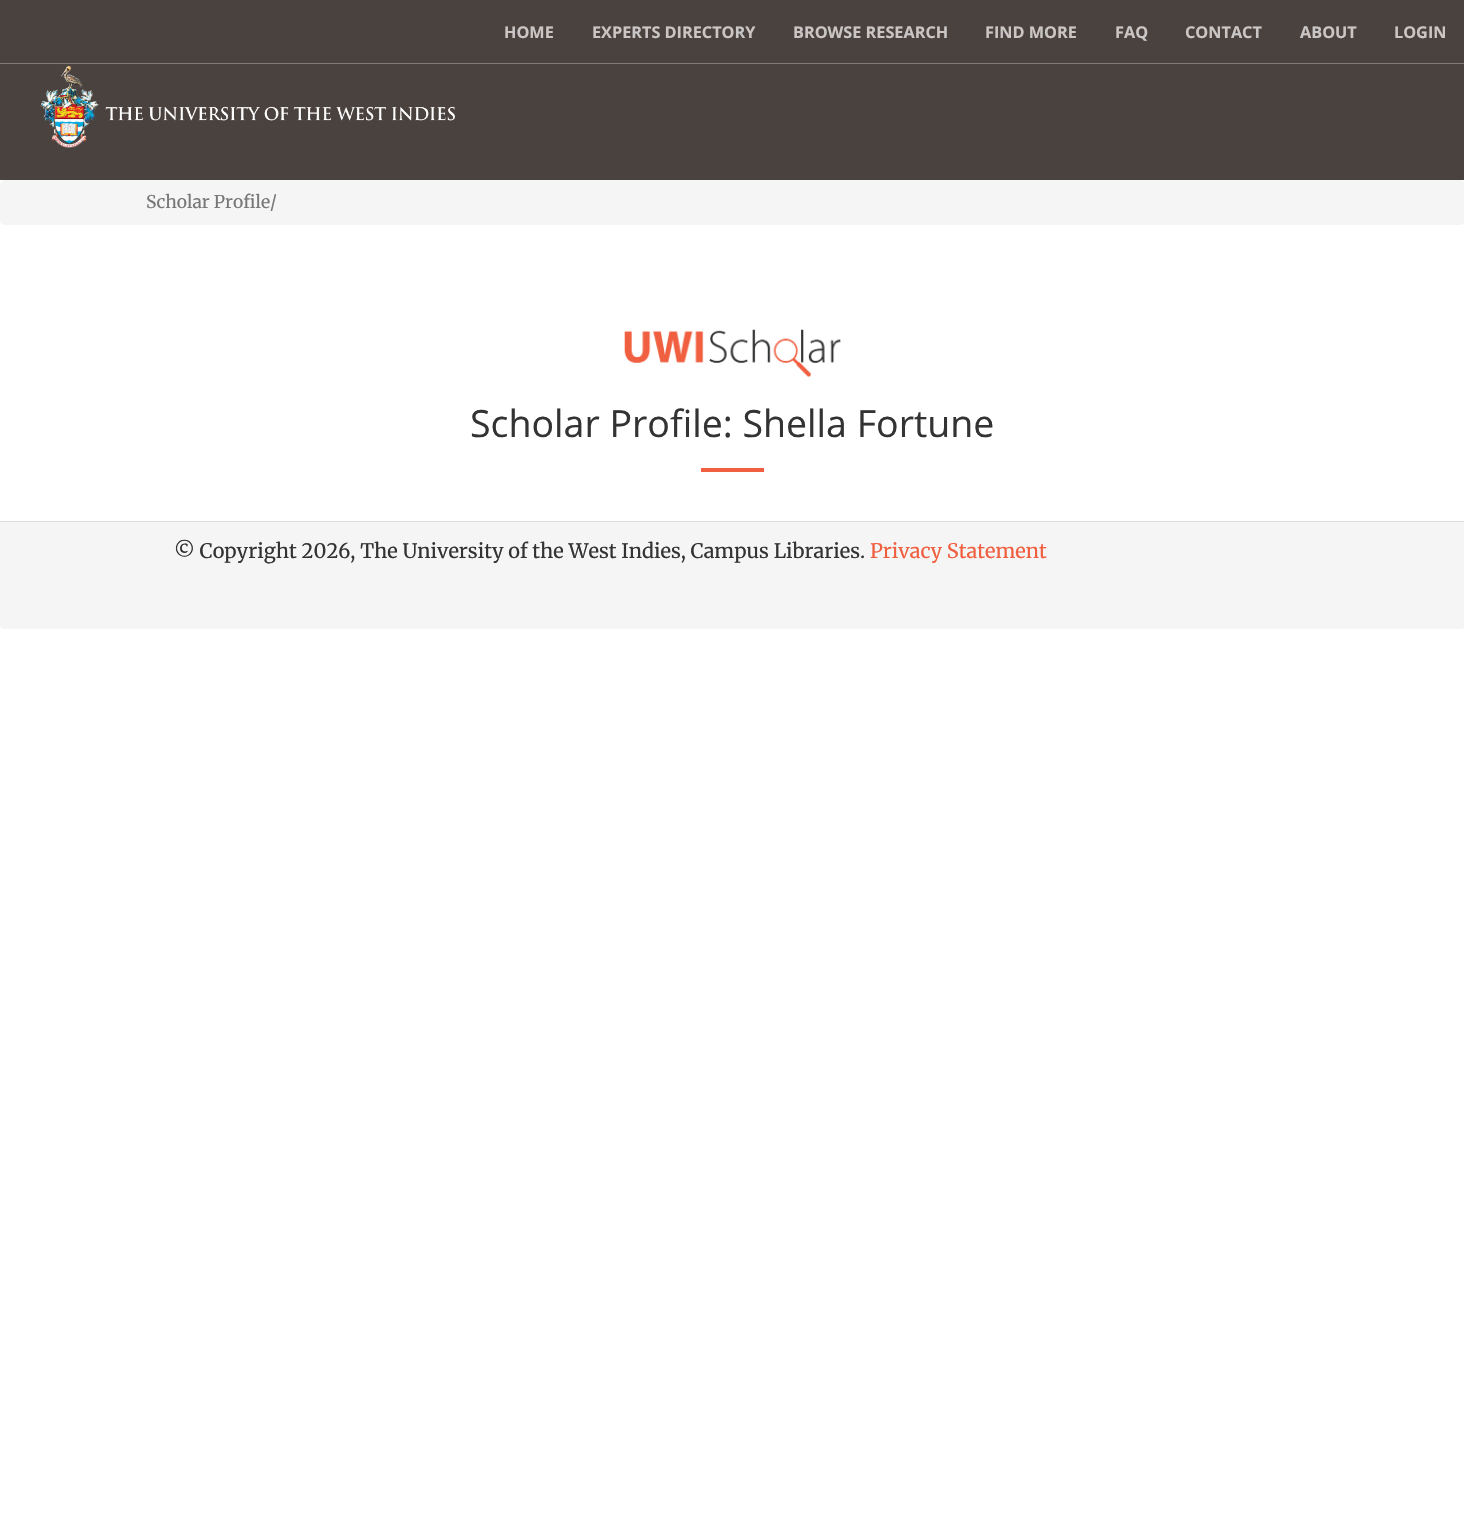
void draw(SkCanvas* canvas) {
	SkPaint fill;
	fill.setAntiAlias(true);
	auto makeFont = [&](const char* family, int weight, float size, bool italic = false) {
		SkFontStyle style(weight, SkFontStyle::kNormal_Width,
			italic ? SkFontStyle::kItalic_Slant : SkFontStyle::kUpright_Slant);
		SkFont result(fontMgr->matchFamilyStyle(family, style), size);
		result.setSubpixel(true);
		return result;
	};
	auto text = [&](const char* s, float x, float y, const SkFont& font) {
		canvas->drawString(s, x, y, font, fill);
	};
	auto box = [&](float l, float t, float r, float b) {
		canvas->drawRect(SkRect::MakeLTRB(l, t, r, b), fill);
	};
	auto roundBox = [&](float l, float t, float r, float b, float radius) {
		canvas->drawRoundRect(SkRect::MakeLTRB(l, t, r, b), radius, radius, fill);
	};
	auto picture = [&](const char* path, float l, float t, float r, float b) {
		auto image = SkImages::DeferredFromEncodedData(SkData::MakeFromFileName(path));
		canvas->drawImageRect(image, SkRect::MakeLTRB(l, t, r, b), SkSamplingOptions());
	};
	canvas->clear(0xFFFFFFFF);
	fill.setColor(0xFF4A423F);
	box(0, 0, 1464, 180);
	picture("image0.png", 40, 66, 455, 148);
	fill.setColor(0xFF807B79);
	box(0, 63, 1464, 64);
	fill.setColor(0xFFF5F5F5);
	roundBox(0, 180, 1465, 225, 5);
	picture("image1.png", 624, 329, 841, 378);
	fill.setColor(0xFFF05F40);
	box(701, 468, 764, 472);
	fill.setColor(0xFFF5F5F5);
	canvas->drawPath(SkPathBuilder().moveTo(0, 521).lineTo(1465, 521).lineTo(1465, 625).cubicTo(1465, 627, 1463, 629, 1461, 629).lineTo(4, 629).cubicTo(2, 629, 0, 627, 0, 625).close().detach(), fill);
	fill.setColor(0xFFDDDDDD);
	box(0, 521, 1464, 522);
	auto font1 = makeFont("Open Sans", 700, 16.25f);
	fill.setColor(0xFFC9C6C5);
	text("HOME", 504, 38, font1);
	text("EXPERTS DIRECTORY", 592, 38, font1);
	text("BROWSE RESEARCH", 793, 38, font1);
	text("FIND MORE", 985, 38, font1);
	text("FAQ", 1115, 38, font1);
	text("CONTACT", 1185, 38, font1);
	text("ABOUT", 1300, 38, font1);
	text("LOGIN", 1394, 38, font1);
	auto font2 = makeFont("Merriweather", 400, 17.5f);
	fill.setColor(0xFF777777);
	text("Scholar Profile/", 146, 208, font2);
	auto font3 = makeFont("Open Sans", 400, 37.5f);
	fill.setColor(0xFF333333);
	text("Scholar Profile: Shella Fortune", 470, 437, font3);
	auto font4 = makeFont("Merriweather", 400, 20);
	text("© Copyright 2026, The University of the West Indies, Campus Libraries.", 174, 558, font4);
	fill.setColor(0xFFF05F40);
	text("Privacy Statement", 870, 558, font4);
}
